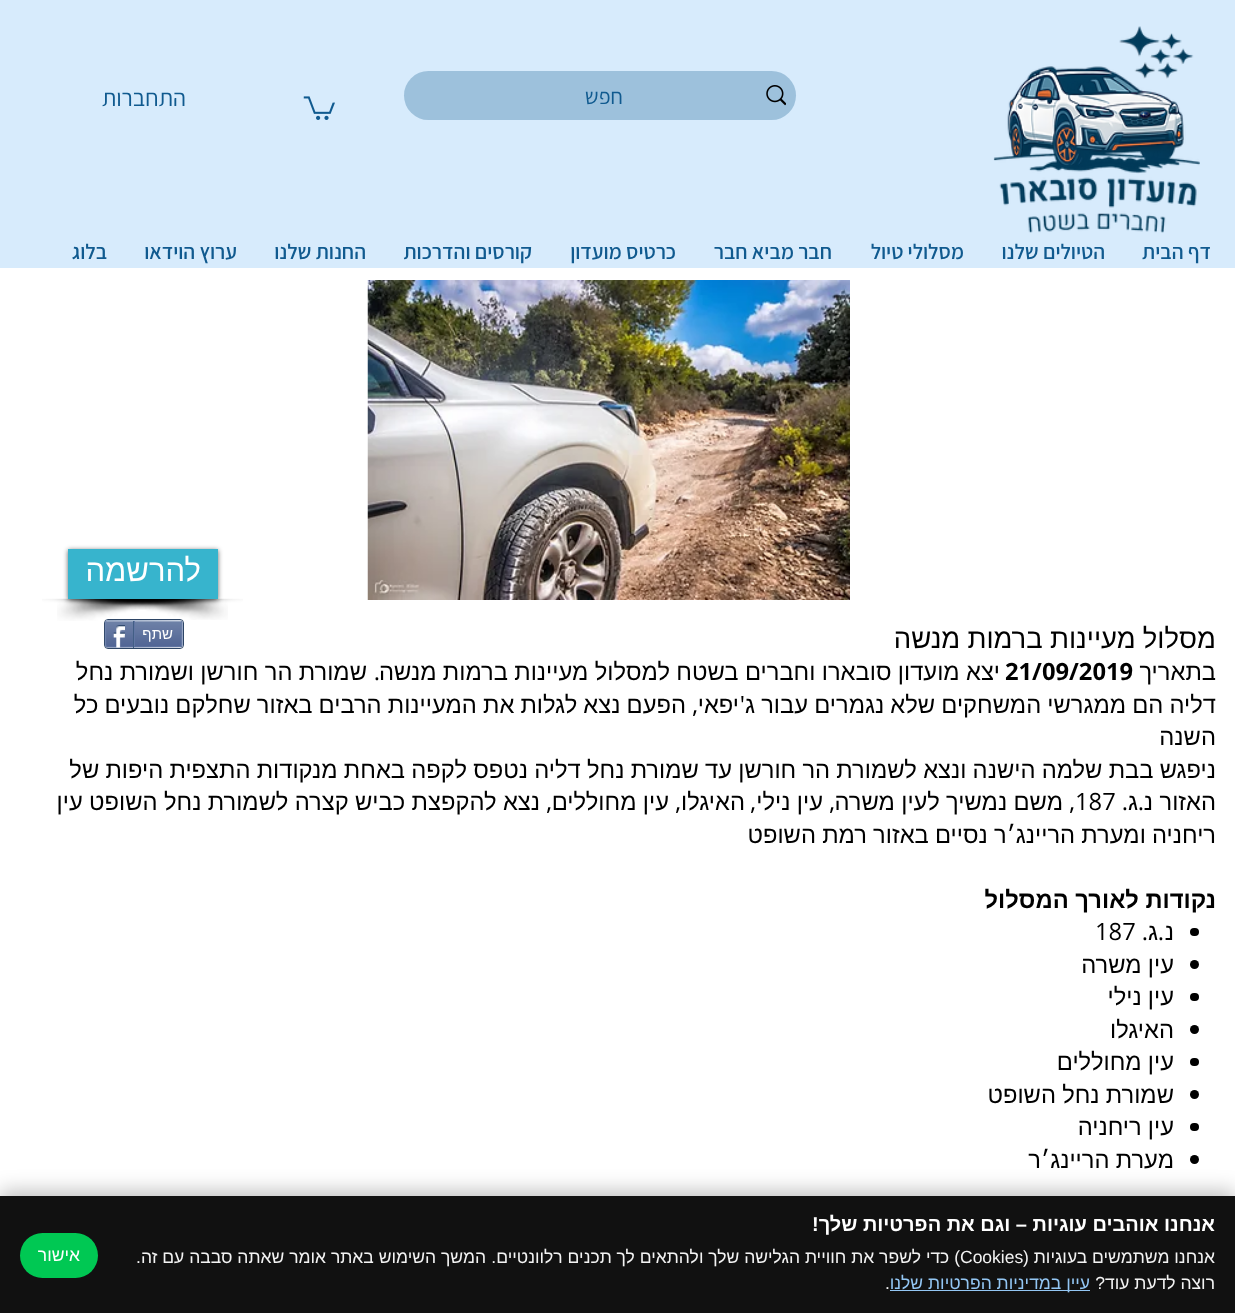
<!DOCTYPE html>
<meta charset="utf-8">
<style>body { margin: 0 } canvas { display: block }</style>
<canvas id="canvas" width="1235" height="1313"></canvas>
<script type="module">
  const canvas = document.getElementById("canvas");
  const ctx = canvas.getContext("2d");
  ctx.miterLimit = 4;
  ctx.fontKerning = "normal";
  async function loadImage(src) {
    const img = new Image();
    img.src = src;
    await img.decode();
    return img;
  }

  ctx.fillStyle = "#ffffff";
  ctx.fillRect(0, 0, 1235, 1313);
  ctx.fillStyle = "#d7ebfc";
  ctx.fillRect(0, 0, 1235, 268);
  ctx.drawImage(await loadImage("img1.png"), 993, 26, 207, 207);
  ctx.fillStyle = "#9dc1dc";
  ctx.beginPath();
  ctx.roundRect(404, 71, 392, 49, 24.5);
  ctx.fill();
  ctx.drawImage(await loadImage("img2.png"), 766, 85, 20, 21);
  ctx.direction = "rtl";
  ctx.font = "22px Assistant";
  ctx.fillStyle = "#105a8f";
  ctx.fillText("חפש", 623, 104);
  ctx.drawImage(await loadImage("img3.png"), 303, 96, 32, 24);
  ctx.font = "23.75px Assistant";
  ctx.fillText("התחברות", 186, 106);
  ctx.font = "600 21.25px Assistant";
  ctx.fillText("דף הבית", 1211, 259);
  ctx.fillText("הטיולים שלנו", 1105, 259);
  ctx.fillText("מסלולי טיול", 964, 259);
  ctx.fillText("חבר מביא חבר", 832, 259);
  ctx.fillText("כרטיס מועדון", 676, 259);
  ctx.fillText("קורסים והדרכות", 532, 259);
  ctx.fillText("החנות שלנו", 366, 259);
  ctx.fillText("ערוץ הוידאו", 237, 259);
  ctx.fillText("בלוג", 107, 259);
  ctx.drawImage(await loadImage("img4.png"), 367, 280, 483, 320);
  ctx.drawImage(await loadImage("img6.png"), 57, 598, 186, 23);
  ctx.drawImage(await loadImage("img5.png"), 42, 598, 186, 22);
  ctx.fillStyle = "rgba(0, 0, 0, 0.6)";
  ctx.filter = "blur(2.5px)";
  ctx.beginPath();
  ctx.rect(68, 550, 150, 50);
  ctx.fill();
  ctx.filter = "none";
  ctx.fillStyle = "#37b4cd";
  ctx.fillRect(68, 549, 150, 50);
  ctx.font = "31px Liberation Sans";
  ctx.fillStyle = "#ffffff";
  ctx.fillText("להרשמה", 201, 581);
  ctx.wordSpacing = "-0.5px";
  ctx.font = "27.5px Liberation Sans";
  ctx.fillStyle = "#000000";
  ctx.fillText("מסלול מעיינות ברמות מנשה", 1216, 648);
  ctx.wordSpacing = "0px";
  ctx.font = "23.75px Liberation Sans";
  ctx.fillText("בתאריך", 1216, 680);
  ctx.direction = "ltr";
  ctx.font = "bold 23.75px Open Sans";
  ctx.fillText("21/09/2019", 1005, 680);
  ctx.wordSpacing = "-0.25px";
  ctx.direction = "rtl";
  ctx.font = "23.75px Liberation Sans";
  ctx.fillText("יצא מועדון סובארו וחברים בשטח למסלול מעיינות ברמות מנשה", 1000, 680);
  ctx.wordSpacing = "0px";
  ctx.font = "23.75px Open Sans";
  ctx.fillText(".", 380, 680);
  ctx.wordSpacing = "-0.25px";
  ctx.font = "23.75px Liberation Sans";
  ctx.fillText("שמורת הר חורשן ושמורת נחל", 367, 680);
  ctx.wordSpacing = "-0.5px";
  ctx.fillText("דליה הם ממגרשי המשחקים שלא נגמרים עבור ג", 1216, 713);
  ctx.wordSpacing = "0px";
  ctx.font = "23.75px Open Sans";
  ctx.fillText("'", 745, 713);
  ctx.font = "23.75px Liberation Sans";
  ctx.fillText("יפאי", 739, 713);
  ctx.font = "23.75px Open Sans";
  ctx.fillText(",", 698, 713);
  ctx.wordSpacing = "-0.5px";
  ctx.font = "23.75px Liberation Sans";
  ctx.fillText("הפעם נצא לגלות את המעיינות הרבים באזור שחלקם נובעים כל", 686, 713);
  ctx.wordSpacing = "0px";
  ctx.fillText("השנה", 1216, 745);
  ctx.wordSpacing = "-0.4px";
  ctx.fillText("ניפגש בבת שלמה הישנה ונצא לשמורת הר חורשן עד שמורת נחל דליה נטפס לקפה באחת מנקודות התצפית היפות של", 1216, 778);
  ctx.wordSpacing = "0px";
  ctx.fillText("האזור נ", 1216, 810);
  ctx.font = "23.75px Open Sans";
  ctx.fillText(".", 1144, 810);
  ctx.font = "23.75px Liberation Sans";
  ctx.fillText("ג", 1138, 810);
  ctx.font = "23.75px Open Sans";
  ctx.fillText(".", 1128, 810);
  ctx.direction = "ltr";
  ctx.fillText("187", 1075, 810);
  ctx.direction = "rtl";
  ctx.fillText(",", 1075, 810);
  ctx.wordSpacing = "-0.25px";
  ctx.font = "23.75px Liberation Sans";
  ctx.fillText("משם נמשיך לעין משרה", 1063, 810);
  ctx.wordSpacing = "0px";
  ctx.font = "23.75px Open Sans";
  ctx.fillText(",", 835, 810);
  ctx.wordSpacing = "-0.25px";
  ctx.font = "23.75px Liberation Sans";
  ctx.fillText("עין נילי", 823, 810);
  ctx.wordSpacing = "0px";
  ctx.font = "23.75px Open Sans";
  ctx.fillText(",", 756, 810);
  ctx.font = "23.75px Liberation Sans";
  ctx.fillText("האיגלו", 745, 810);
  ctx.font = "23.75px Open Sans";
  ctx.fillText(",", 681, 810);
  ctx.wordSpacing = "-0.25px";
  ctx.font = "23.75px Liberation Sans";
  ctx.fillText("עין מחוללים", 669, 810);
  ctx.wordSpacing = "0px";
  ctx.font = "23.75px Open Sans";
  ctx.fillText(",", 552, 810);
  ctx.wordSpacing = "-0.25px";
  ctx.font = "23.75px Liberation Sans";
  ctx.fillText("נצא להקפצת כביש קצרה לשמורת נחל השופט עין", 540, 810);
  ctx.wordSpacing = "-0.4px";
  ctx.fillText("ריחניה ומערת הריינג׳ר נסיים באזור רמת השופט", 1216, 843);
  ctx.wordSpacing = "0px";
  ctx.font = "bold 23.75px Liberation Sans";
  ctx.fillText("נקודות לאורך המסלול", 1216, 908);
  ctx.beginPath();
  ctx.roundRect(1190, 928, 9, 8, 4);
  ctx.fill();
  ctx.font = "23.75px Liberation Sans";
  ctx.fillText("נ", 1174, 940);
  ctx.font = "23.75px Open Sans";
  ctx.fillText(".", 1164, 940);
  ctx.font = "23.75px Liberation Sans";
  ctx.fillText("ג", 1158, 940);
  ctx.font = "23.75px Open Sans";
  ctx.fillText(".", 1148, 940);
  ctx.direction = "ltr";
  ctx.fillText("187", 1095, 940);
  ctx.beginPath();
  ctx.arc(1194.5, 964.5, 4.5, 0, Math.PI * 2);
  ctx.fill();
  ctx.wordSpacing = "-0.4px";
  ctx.direction = "rtl";
  ctx.font = "23.75px Liberation Sans";
  ctx.fillText("עין משרה", 1174, 973);
  ctx.beginPath();
  ctx.roundRect(1190, 993, 9, 8, 4);
  ctx.fill();
  ctx.fillText("עין נילי", 1174, 1005);
  ctx.beginPath();
  ctx.arc(1194.5, 1029.5, 4.5, 0, Math.PI * 2);
  ctx.fill();
  ctx.wordSpacing = "0px";
  ctx.fillText("האיגלו", 1174, 1038);
  ctx.beginPath();
  ctx.roundRect(1190, 1058, 9, 8, 4);
  ctx.fill();
  ctx.wordSpacing = "-0.4px";
  ctx.fillText("עין מחוללים", 1174, 1070);
  ctx.beginPath();
  ctx.arc(1194.5, 1094.5, 4.5, 0, Math.PI * 2);
  ctx.fill();
  ctx.fillText("שמורת נחל השופט", 1174, 1103);
  ctx.beginPath();
  ctx.roundRect(1190, 1123, 9, 8, 4);
  ctx.fill();
  ctx.fillText("עין ריחניה", 1174, 1135);
  ctx.beginPath();
  ctx.arc(1194.5, 1159.5, 4.5, 0, Math.PI * 2);
  ctx.fill();
  ctx.fillText("מערת הריינג׳ר", 1174, 1168);
  ctx.beginPath();
  ctx.roundRect(104.5, 619.5, 79, 29, 3.5);
  ctx.strokeStyle = "#2d4565";
  ctx.stroke();
  ctx.drawImage(await loadImage("img7.png"), 105, 621, 78, 27);
  ctx.beginPath();
  ctx.moveTo(106, 621);
  ctx.lineTo(107.5, 620.5);
  ctx.lineTo(181.5, 621);
  ctx.strokeStyle = "#9aabc6";
  ctx.lineWidth = 1.2;
  ctx.stroke();
  ctx.beginPath();
  ctx.moveTo(181.5, 621);
  ctx.lineTo(182, 622.5);
  ctx.lineTo(182, 645);
  ctx.lineTo(181.5, 646.5);
  ctx.strokeStyle = "#6f83ad";
  ctx.stroke();
  ctx.beginPath();
  ctx.moveTo(181.5, 646.5);
  ctx.lineTo(119.5, 647);
  ctx.lineTo(107.5, 647);
  ctx.lineTo(106, 646.5);
  ctx.strokeStyle = "#6176a3";
  ctx.stroke();
  ctx.beginPath();
  ctx.moveTo(106, 646.5);
  ctx.lineTo(105.5, 645);
  ctx.lineTo(105.5, 622.5);
  ctx.lineTo(106, 621);
  ctx.strokeStyle = "#6f83ad";
  ctx.stroke();
  ctx.wordSpacing = "0px";
  ctx.font = "15px Liberation Sans";
  ctx.fillStyle = "#ffffff";
  ctx.fillText("שתף", 173, 639);
  ctx.fillStyle = "#6176a3";
  ctx.fillRect(134, 621, 1, 25);
  ctx.drawImage(await loadImage("img8.png"), 112, 625, 13, 23);
  ctx.fillStyle = "#425e85";
  ctx.fillRect(133, 621, 1, 27);
  ctx.fillStyle = "rgba(0, 0, 0, 0.25)";
  ctx.filter = "blur(10px)";
  ctx.beginPath();
  ctx.rect(0, 1191, 1235, 118);
  ctx.fill();
  ctx.filter = "none";
  ctx.fillStyle = "#111111";
  ctx.fillRect(0, 1196, 1235, 117);
  ctx.font = "bold 20px Liberation Sans";
  ctx.fillStyle = "#ffffff";
  ctx.fillText("אנחנו אוהבים עוגיות – וגם את הפרטיות שלך!", 1215, 1231);
  ctx.font = "17.5px Liberation Sans";
  ctx.fillStyle = "#f3f3f3";
  ctx.fillText("אנחנו משתמשים בעוגיות (", 1215, 1263);
  ctx.direction = "ltr";
  ctx.fillText("Cookies", 960, 1263);
  ctx.direction = "rtl";
  ctx.fillText(") כדי לשפר את חוויית הגלישה שלך ולהתאים לך תכנים רלוונטיים.", 960, 1263);
  ctx.fillText("המשך השימוש באתר אומר שאתה סבבה עם זה.", 486, 1263);
  ctx.fillText("רוצה לדעת עוד?", 1215, 1289);
  ctx.fillStyle = "#93c6f3";
  ctx.fillRect(890, 1290, 200, 1);
  ctx.fillText("עיין במדיניות הפרטיות שלנו", 1090, 1289);
  ctx.direction = "ltr";
  ctx.fillStyle = "#f3f3f3";
  ctx.fillText(".", 885, 1289);
  ctx.fillStyle = "#00c853";
  ctx.beginPath();
  ctx.roundRect(20, 1233, 78, 45, 22.5);
  ctx.fill();
  ctx.direction = "rtl";
  ctx.fillStyle = "#ffffff";
  ctx.fillText("אישור", 80, 1261);
</script>
